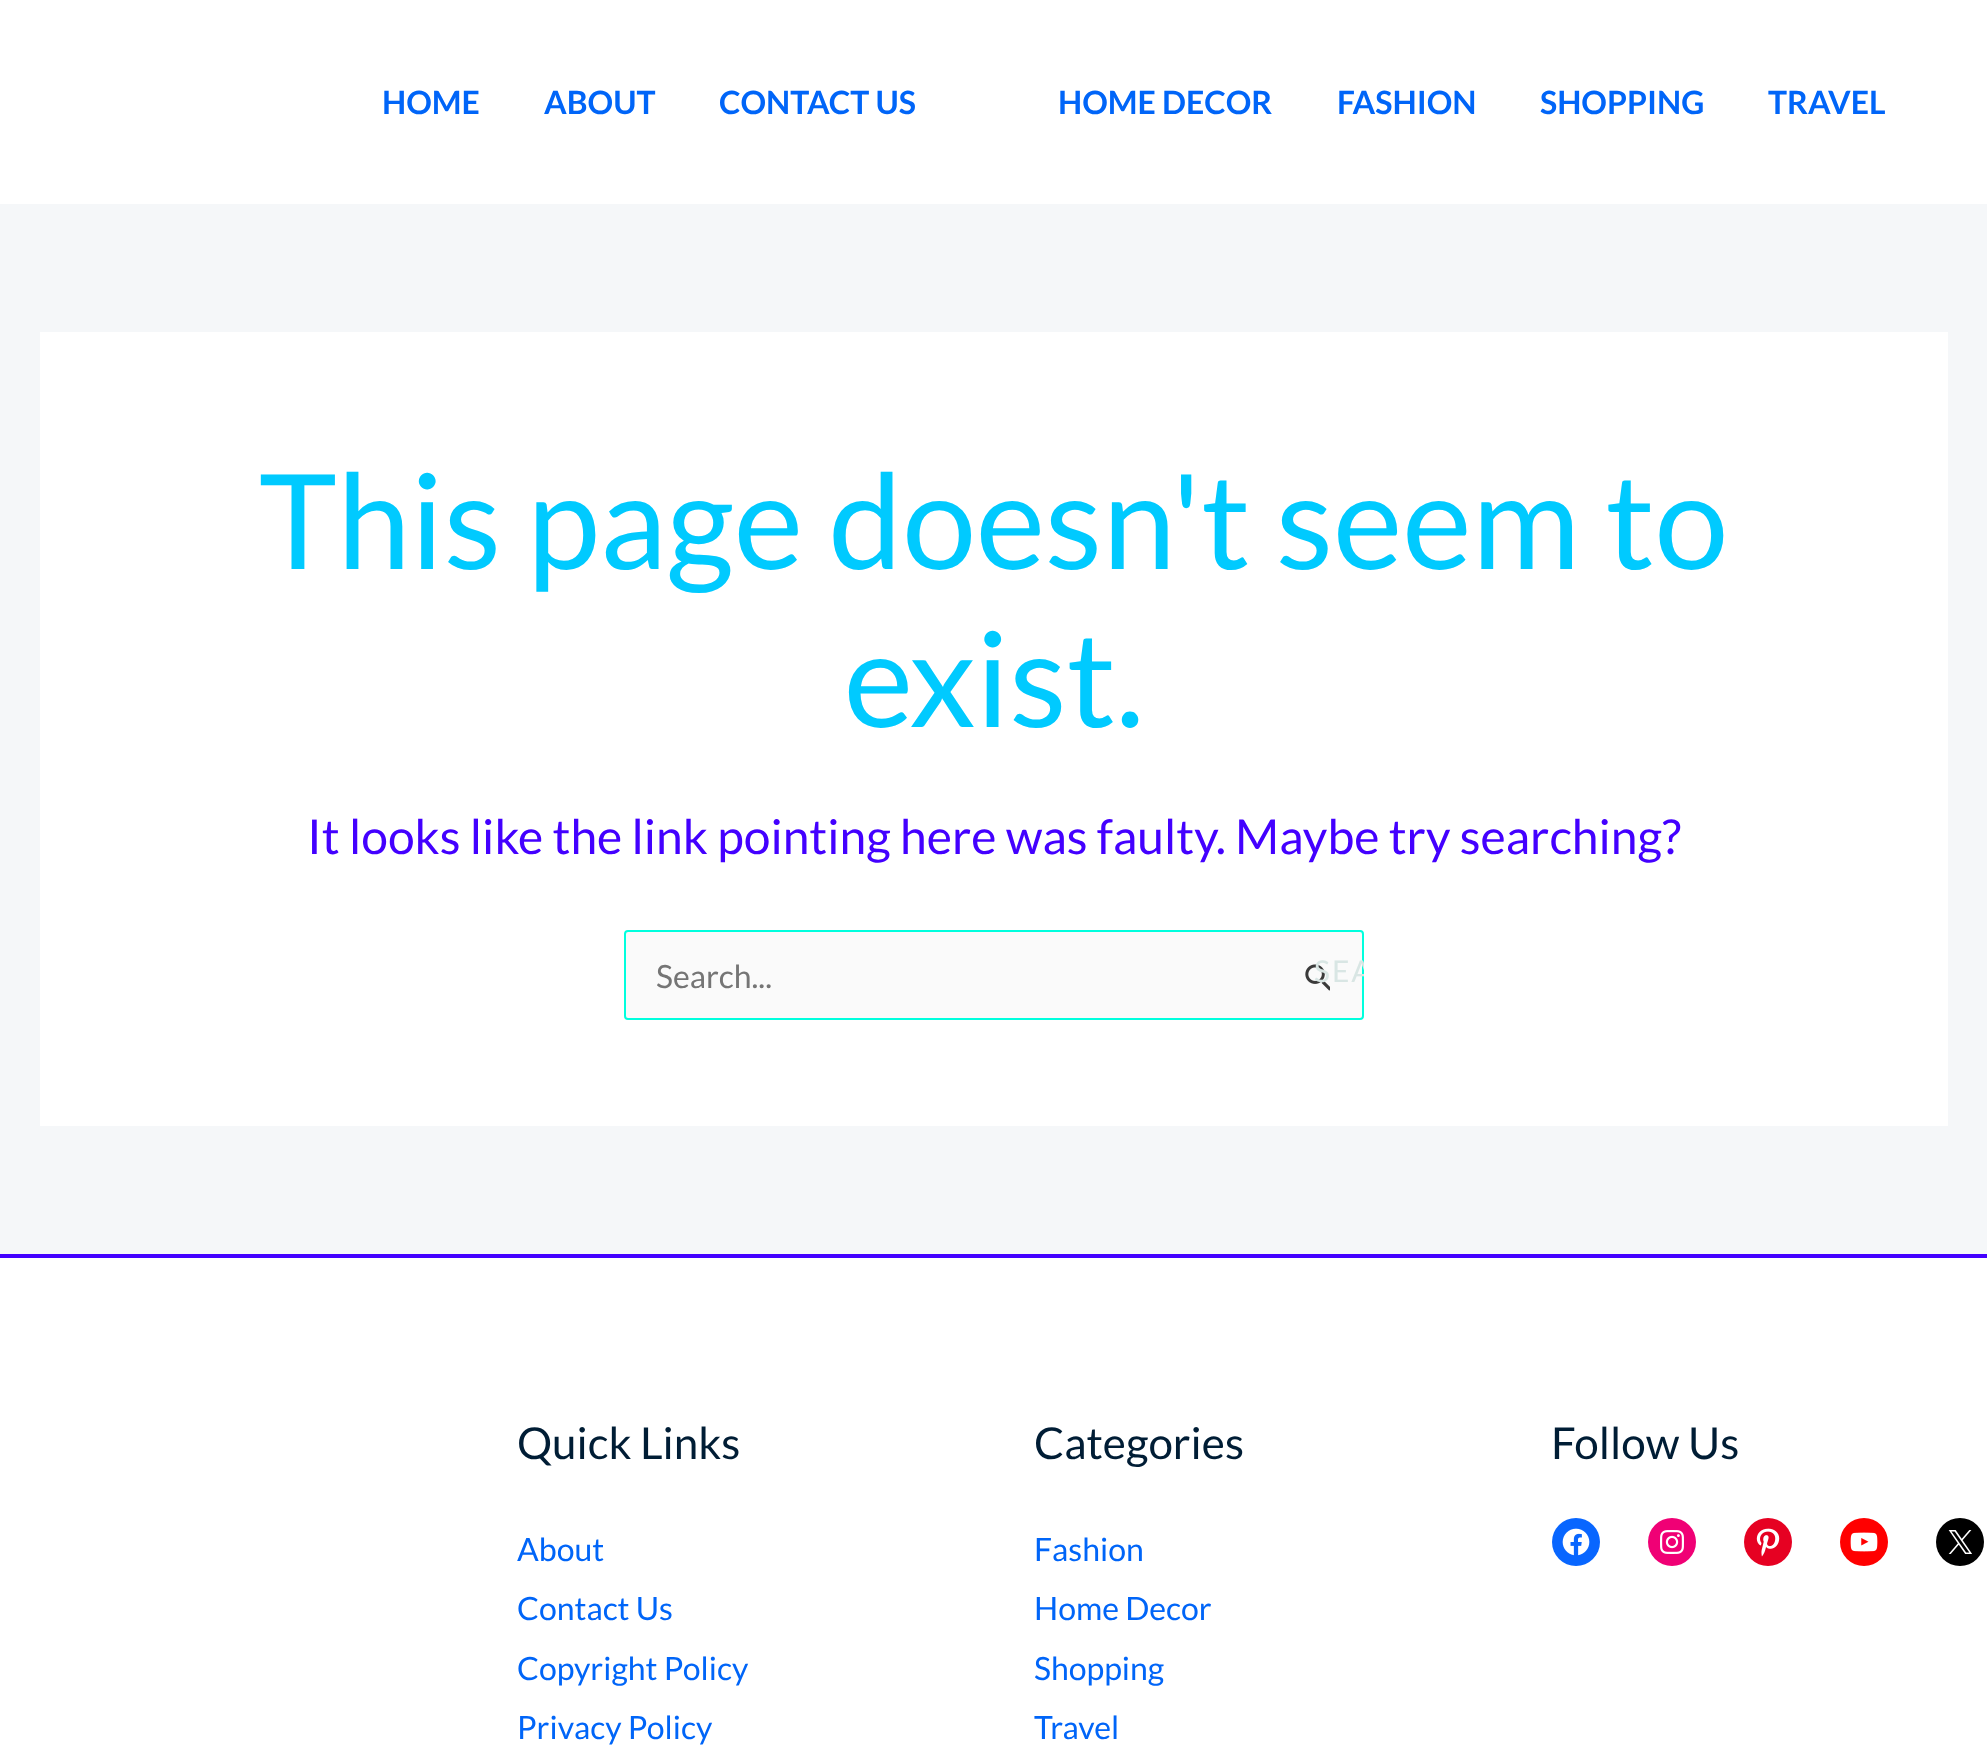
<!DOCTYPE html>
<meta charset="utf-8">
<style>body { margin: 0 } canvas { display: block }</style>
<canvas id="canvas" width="1987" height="1748"></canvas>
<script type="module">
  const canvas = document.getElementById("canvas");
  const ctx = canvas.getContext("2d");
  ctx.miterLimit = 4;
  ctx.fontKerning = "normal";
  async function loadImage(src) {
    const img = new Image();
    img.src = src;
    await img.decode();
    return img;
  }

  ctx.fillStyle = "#f5f7f9";
  ctx.fillRect(0, 0, 1987, 1748);
  ctx.fillStyle = "#ffffff";
  ctx.fillRect(0, 0, 1987, 204);
  ctx.font = "bold 32px Lato";
  ctx.fillStyle = "#0065f8";
  ctx.fillText("HOME", 382, 114);
  ctx.fillText("ABOUT", 544, 114);
  ctx.fillText("CONTACT US", 719, 114);
  ctx.fillText("HOME DECOR", 1058, 114);
  ctx.fillText("FASHION", 1337, 114);
  ctx.fillText("SHOPPING", 1540, 114);
  ctx.fillText("TRAVEL", 1768, 114);
  ctx.fillStyle = "#ffffff";
  ctx.fillRect(40, 332, 1908, 794);
  ctx.font = "132px Lato";
  ctx.fillStyle = "#00caff";
  ctx.fillText("This page doesn't seem to", 259, 569);
  ctx.fillText("exist.", 844, 727);
  ctx.font = "48px Lato";
  ctx.fillStyle = "#4300ff";
  ctx.fillText("It looks like the link pointing here was faulty. Maybe try searching?", 307, 854);
  ctx.fillStyle = "#fafafa";
  ctx.beginPath();
  ctx.roundRect(625, 931, 738, 88, 3);
  ctx.fill();
  ctx.strokeStyle = "#00ffde";
  ctx.lineWidth = 2;
  ctx.stroke();
  ctx.font = "32px Lato";
  ctx.fillStyle = "#757575";
  ctx.fillText("Search...", 656, 988);
  ctx.drawImage(await loadImage("img1.png"), 1305, 964, 25, 27);
  ctx.save();
  ctx.beginPath();
  ctx.roundRect(1274, 930, 90, 82, 4);
  ctx.clip();
  ctx.letterSpacing = "2px";
  ctx.font = "30px Lato";
  ctx.fillStyle = "#d9e6e4";
  ctx.fillText("SEA", 1314, 982);
  ctx.restore();
  ctx.fillStyle = "#ffffff";
  ctx.fillRect(0, 1258, 1987, 490);
  ctx.fillStyle = "#4300ff";
  ctx.fillRect(0, 1254, 1987, 4);
  ctx.font = "44px Lato";
  ctx.fillStyle = "#001d35";
  ctx.fillText("Quick Links", 517, 1459);
  ctx.font = "32px Lato";
  ctx.fillStyle = "#0065f8";
  ctx.fillText("About", 517, 1561);
  ctx.fillText("Contact Us", 517, 1620);
  ctx.fillText("Copyright Policy", 517, 1680);
  ctx.fillText("Privacy Policy", 517, 1739);
  ctx.font = "44px Lato";
  ctx.fillStyle = "#001d35";
  ctx.fillText("Categories", 1034, 1459);
  ctx.font = "32px Lato";
  ctx.fillStyle = "#0065f8";
  ctx.fillText("Fashion", 1034, 1561);
  ctx.fillText("Home Decor", 1034, 1620);
  ctx.fillText("Shopping", 1034, 1680);
  ctx.fillText("Travel", 1034, 1739);
  ctx.font = "44px Lato";
  ctx.fillStyle = "#001d35";
  ctx.fillText("Follow Us", 1551, 1459);
  ctx.fillStyle = "#0866ff";
  ctx.beginPath();
  ctx.arc(1576, 1542, 24, 0, Math.PI * 2);
  ctx.fill();
  ctx.drawImage(await loadImage("img2.png"), 1562, 1528, 28, 28);
  ctx.fillStyle = "#f00075";
  ctx.beginPath();
  ctx.arc(1672, 1542, 24, 0, Math.PI * 2);
  ctx.fill();
  ctx.drawImage(await loadImage("img3.png"), 1660, 1530, 24, 24);
  ctx.fillStyle = "#e60122";
  ctx.beginPath();
  ctx.arc(1768, 1542, 24, 0, Math.PI * 2);
  ctx.fill();
  ctx.drawImage(await loadImage("img4.png"), 1756, 1528, 24, 29);
  ctx.fillStyle = "#ff0000";
  ctx.beginPath();
  ctx.arc(1864, 1542, 24, 0, Math.PI * 2);
  ctx.fill();
  ctx.drawImage(await loadImage("img5.png"), 1850, 1532, 28, 20);
  ctx.fillStyle = "#000000";
  ctx.beginPath();
  ctx.arc(1960, 1542, 24, 0, Math.PI * 2);
  ctx.fill();
  ctx.drawImage(await loadImage("img6.png"), 1948, 1530, 24, 24);
</script>
